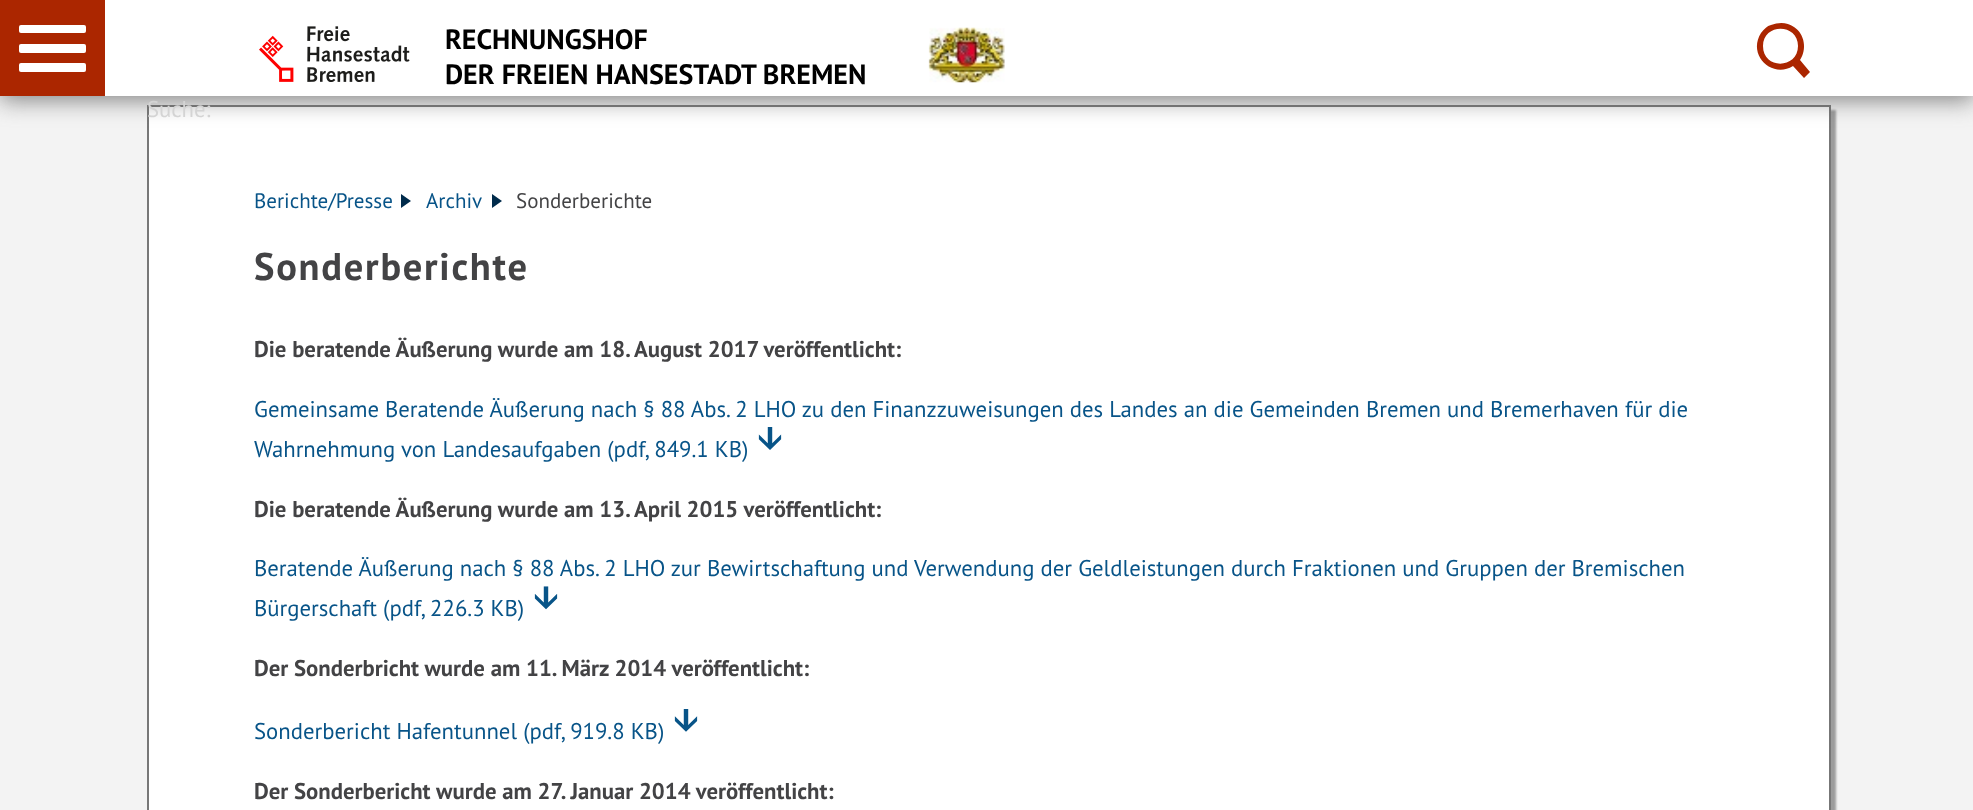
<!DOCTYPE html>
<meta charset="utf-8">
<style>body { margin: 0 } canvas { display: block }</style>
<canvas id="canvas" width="1973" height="810"></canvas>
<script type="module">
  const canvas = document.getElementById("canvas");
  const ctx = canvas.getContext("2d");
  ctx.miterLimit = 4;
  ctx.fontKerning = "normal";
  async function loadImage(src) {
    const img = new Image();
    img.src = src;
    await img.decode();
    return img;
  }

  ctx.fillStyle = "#f3f3f3";
  ctx.fillRect(0, 0, 1973, 810);
  ctx.save();
  ctx.beginPath();
  ctx.rect(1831, 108, 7, 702);
  ctx.clip();
  ctx.fillStyle = "rgba(50, 50, 50, 0.45)";
  ctx.filter = "blur(1px)";
  ctx.beginPath();
  ctx.rect(152, 110, 1684, 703);
  ctx.fill();
  ctx.filter = "none";
  ctx.restore();
  ctx.fillStyle = "rgba(255, 255, 255, 0.98)";
  ctx.beginPath();
  ctx.rect(148, 106, 1682, 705);
  ctx.fill();
  ctx.strokeStyle = "#777777";
  ctx.lineWidth = 2;
  ctx.stroke();
  ctx.fillStyle = "rgba(100, 100, 100, 0.8)";
  ctx.filter = "blur(11.5px)";
  ctx.beginPath();
  ctx.rect(0, 4, 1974, 96);
  ctx.fill();
  ctx.filter = "none";
  ctx.fillStyle = "#ab2600";
  ctx.fillRect(0, 0, 105, 96);
  ctx.fillStyle = "#ffffff";
  ctx.beginPath();
  ctx.roundRect(19, 25, 67, 8, 2);
  ctx.fill();
  ctx.beginPath();
  ctx.roundRect(19, 44, 67, 9, 2);
  ctx.fill();
  ctx.beginPath();
  ctx.roundRect(19, 63, 67, 9, 2);
  ctx.fill();
  ctx.fillRect(105, 0, 1868, 96);
  ctx.drawImage(await loadImage("img1.png"), 259, 26, 151, 56);
  ctx.font = "bold 28px PT Sans";
  ctx.fillStyle = "#000000";
  ctx.fillText("RECHNUNGSHOF", 445, 49);
  ctx.fillText("DER FREIEN HANSESTADT BREMEN", 445, 84);
  ctx.drawImage(await loadImage("img2.png"), 928, 27, 77, 56);
  ctx.fillStyle = "#ab2600";
  ctx.beginPath();
  ctx.moveTo(1810, 72);
  ctx.lineTo(1800, 60);
  ctx.bezierCurveTo(1807, 50, 1805, 34, 1794, 27);
  ctx.bezierCurveTo(1787, 22, 1779, 22, 1771, 25);
  ctx.bezierCurveTo(1767, 26, 1764, 29, 1761, 33);
  ctx.bezierCurveTo(1747, 55, 1772, 79, 1793, 66);
  ctx.lineTo(1804, 78);
  ctx.closePath();
  ctx.moveTo(1763, 46);
  ctx.bezierCurveTo(1763, 23, 1798, 23, 1798, 46);
  ctx.bezierCurveTo(1798, 69, 1763, 70, 1763, 46);
  ctx.closePath();
  ctx.fill();
  ctx.font = "22.75px PT Sans";
  ctx.fillStyle = "#d4d4d4";
  ctx.fillText("Suche:", 147, 117);
  ctx.font = "21px PT Sans";
  ctx.fillStyle = "#085488";
  ctx.fillText("Berichte/Presse", 254, 208);
  ctx.fillStyle = "#002b4b";
  ctx.beginPath();
  ctx.moveTo(401, 208);
  ctx.lineTo(401, 194);
  ctx.lineTo(411, 201);
  ctx.closePath();
  ctx.fill();
  ctx.fillStyle = "#085488";
  ctx.fillText("Archiv", 426, 208);
  ctx.fillStyle = "#002b4b";
  ctx.beginPath();
  ctx.moveTo(492, 208);
  ctx.lineTo(492, 194);
  ctx.lineTo(502, 201);
  ctx.closePath();
  ctx.fill();
  ctx.fillStyle = "#434345";
  ctx.fillText("Sonderberichte", 516, 208);
  ctx.letterSpacing = "1.75px";
  ctx.font = "bold 38.5px PT Sans";
  ctx.fillText("Sonderberichte", 254, 280);
  ctx.letterSpacing = "0px";
  ctx.font = "bold 22.75px PT Sans";
  ctx.fillText("Die beratende Äußerung wurde am 18. August 2017 veröffentlicht:", 254, 357);
  ctx.font = "22.75px PT Sans";
  ctx.fillStyle = "#085488";
  ctx.fillText("Gemeinsame Beratende Äußerung nach § 88 Abs. 2 LHO zu den Finanzzuweisungen des Landes an die Gemeinden Bremen und Bremerhaven für die", 254, 417);
  ctx.fillText("Wahrnehmung von Landesaufgaben (pdf, 849.1 KB)", 254, 457);
  ctx.drawImage(await loadImage("img3.png"), 758, 427, 24, 23);
  ctx.font = "bold 22.75px PT Sans";
  ctx.fillStyle = "#434345";
  ctx.fillText("Die beratende Äußerung wurde am 13. April 2015 veröffentlicht:", 254, 517);
  ctx.font = "22.75px PT Sans";
  ctx.fillStyle = "#085488";
  ctx.fillText("Beratende Äußerung nach § 88 Abs. 2 LHO zur Bewirtschaftung und Verwendung der Geldleistungen durch Fraktionen und Gruppen der Bremischen", 254, 576);
  ctx.fillText("Bürgerschaft (pdf, 226.3 KB)", 254, 616);
  ctx.drawImage(await loadImage("img4.png"), 534, 586, 24, 24);
  ctx.font = "bold 22.75px PT Sans";
  ctx.fillStyle = "#434345";
  ctx.fillText("Der Sonderbricht wurde am 11. März 2014 veröffentlicht:", 254, 676);
  ctx.font = "22.75px PT Sans";
  ctx.fillStyle = "#085488";
  ctx.fillText("Sonderbericht Hafentunnel (pdf, 919.8 KB)", 254, 739);
  ctx.drawImage(await loadImage("img5.png"), 674, 709, 24, 23);
  ctx.font = "bold 22.75px PT Sans";
  ctx.fillStyle = "#434345";
  ctx.fillText("Der Sonderbericht wurde am 27. Januar 2014 veröffentlicht:", 254, 799);
</script>
